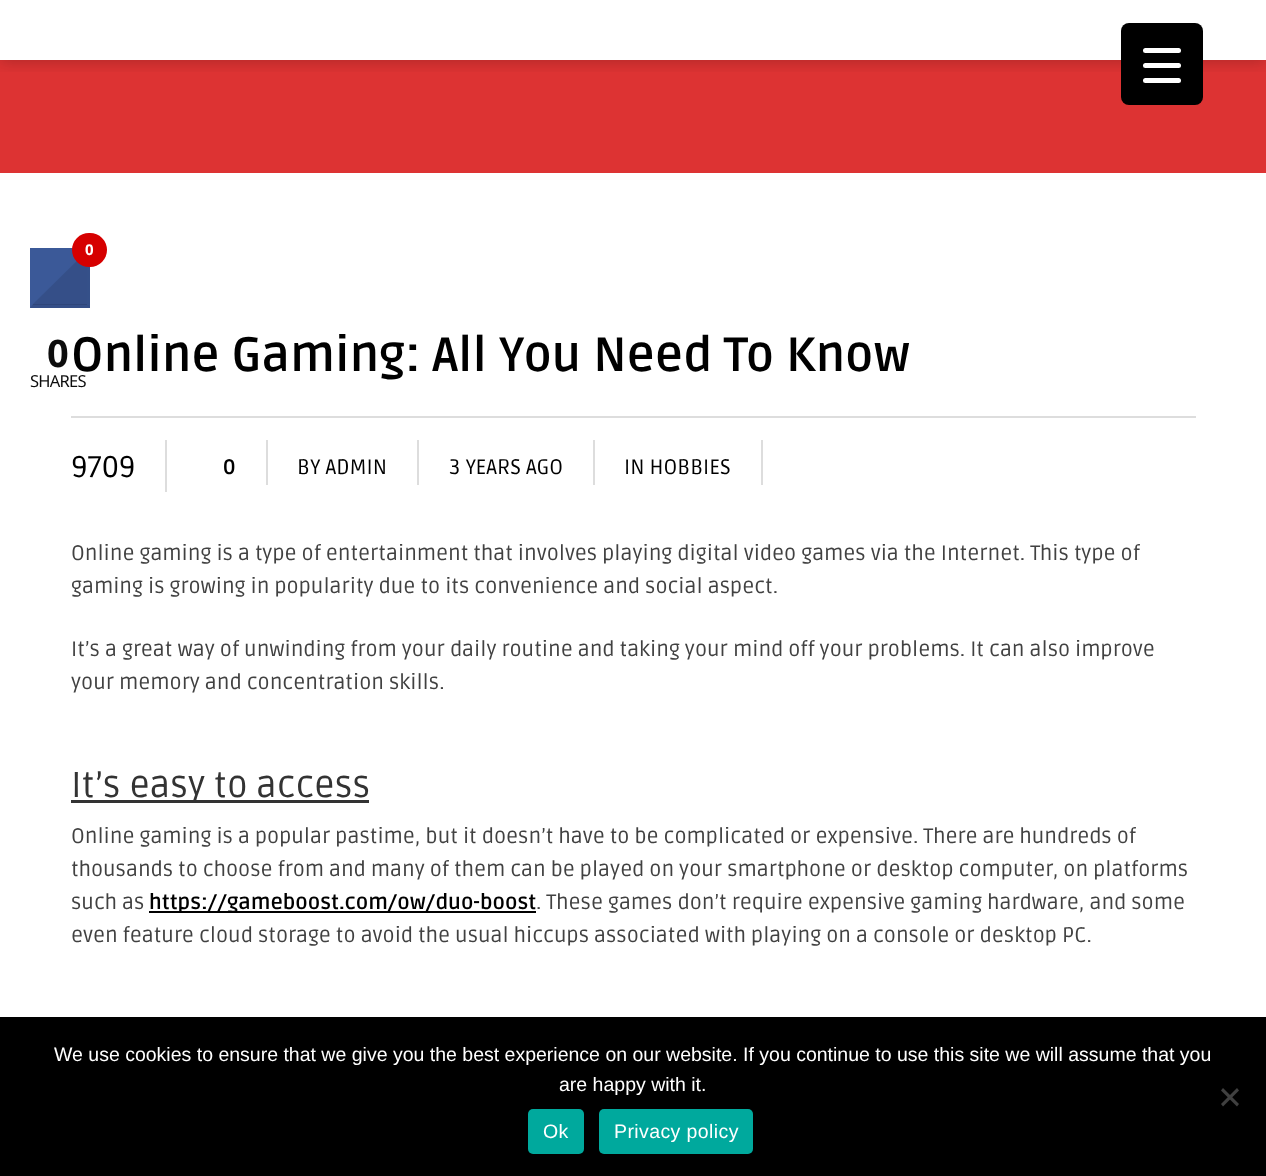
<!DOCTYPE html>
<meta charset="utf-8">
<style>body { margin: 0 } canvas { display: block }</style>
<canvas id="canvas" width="1266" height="1176"></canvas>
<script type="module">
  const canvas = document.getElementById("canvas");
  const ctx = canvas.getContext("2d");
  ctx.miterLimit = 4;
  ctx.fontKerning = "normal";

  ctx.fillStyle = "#ffffff";
  ctx.fillRect(0, 0, 1266, 1176);
  ctx.fillStyle = "#dd3333";
  ctx.fillRect(0, 60, 1266, 113);
  ctx.save();
  ctx.beginPath();
  ctx.rect(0, 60, 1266, 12);
  ctx.clip();
  ctx.fillStyle = "rgba(0, 0, 0, 0.2)";
  ctx.filter = "blur(7.5px)";
  ctx.beginPath();
  ctx.rect(0, 2, 1266, 60);
  ctx.fill();
  ctx.filter = "none";
  ctx.restore();
  ctx.fillStyle = "#000000";
  ctx.beginPath();
  ctx.roundRect(1121, 23, 82, 82, 8);
  ctx.fill();
  ctx.fillStyle = "#ffffff";
  ctx.beginPath();
  ctx.roundRect(1143, 63, 38, 5, 2.5);
  ctx.fill();
  ctx.beginPath();
  ctx.roundRect(1143, 48, 38, 5, 2.5);
  ctx.fill();
  ctx.beginPath();
  ctx.roundRect(1143, 78, 38, 5, 2.5);
  ctx.fill();
  ctx.fillStyle = "#3b5998";
  ctx.fillRect(30, 248, 60, 60);
  ctx.fillStyle = "#355089";
  ctx.beginPath();
  ctx.moveTo(90, 248);
  ctx.lineTo(90, 308);
  ctx.lineTo(87, 304);
  ctx.lineTo(87, 250);
  ctx.closePath();
  ctx.fill();
  ctx.fillStyle = "rgba(0, 0, 0, 0.1)";
  ctx.beginPath();
  ctx.moveTo(90, 308);
  ctx.lineTo(30, 308);
  ctx.lineTo(33, 304);
  ctx.lineTo(87, 304);
  ctx.closePath();
  ctx.fill();
  ctx.save();
  ctx.beginPath();
  ctx.rect(33, 251, 54, 54);
  ctx.clip();
  ctx.beginPath();
  ctx.moveTo(90, 248);
  ctx.lineTo(120, 277);
  ctx.lineTo(60, 337);
  ctx.lineTo(30, 307);
  ctx.closePath();
  ctx.fill();
  ctx.restore();
  ctx.fillStyle = "#d60000";
  ctx.beginPath();
  ctx.roundRect(72, 233, 35, 34, 17);
  ctx.fill();
  ctx.letterSpacing = "1px";
  ctx.font = "bold 15px Noto Sans";
  ctx.fillStyle = "#ffffff";
  ctx.fillText("0", 85, 255);
  ctx.font = "bold 38px Noto Sans";
  ctx.fillStyle = "#0d0d0d";
  ctx.fillText("0", 47, 367);
  ctx.letterSpacing = "-0.75px";
  ctx.font = "16.5px Noto Sans";
  ctx.fillText("SHARES", 30, 387);
  ctx.fillStyle = "#dddddd";
  ctx.fillRect(71, 416, 1125, 2);
  ctx.letterSpacing = "0px";
  ctx.font = "bold 48px Ruda";
  ctx.fillStyle = "#000000";
  ctx.fillText("Online Gaming: All You Need To Know", 71, 371);
  ctx.fillStyle = "#dddddd";
  ctx.fillRect(165, 440, 2, 52);
  ctx.font = "30px Ruda";
  ctx.fillStyle = "#000000";
  ctx.fillText("9709", 71, 477);
  ctx.fillStyle = "#dddddd";
  ctx.fillRect(266, 440, 2, 45);
  ctx.font = "bold 21px Ruda";
  ctx.fillStyle = "#000000";
  ctx.fillText("0", 223, 474);
  ctx.fillStyle = "#dddddd";
  ctx.fillRect(417, 440, 2, 45);
  ctx.font = "21px Ruda";
  ctx.fillStyle = "#000000";
  ctx.fillText("BY ADMIN", 297, 474);
  ctx.fillStyle = "#dddddd";
  ctx.fillRect(593, 440, 2, 45);
  ctx.fillStyle = "#000000";
  ctx.fillText("3 YEARS AGO", 449, 474);
  ctx.fillStyle = "#dddddd";
  ctx.fillRect(761, 440, 2, 45);
  ctx.fillStyle = "#000000";
  ctx.fillText("IN HOBBIES", 624, 474);
  ctx.fillStyle = "#414141";
  ctx.fillText("Online gaming is a type of entertainment that involves playing digital video games via the Internet. This type of", 71, 560);
  ctx.fillText("gaming is growing in popularity due to its convenience and social aspect.", 71, 593);
  ctx.fillText("It’s a great way of unwinding from your daily routine and taking your mind off your problems. It can also improve", 71, 656);
  ctx.fillText("your memory and concentration skills.", 71, 689);
  ctx.fillStyle = "#333333";
  ctx.fillRect(71, 800, 298, 3);
  ctx.font = "36px Ruda";
  ctx.fillText("It’s easy to access", 71, 797);
  ctx.font = "21px Ruda";
  ctx.fillStyle = "#414141";
  ctx.fillText("Online gaming is a popular pastime, but it doesn’t have to be complicated or expensive. There are hundreds of", 71, 843);
  ctx.fillText("thousands to choose from and many of them can be played on your smartphone or desktop computer, on platforms", 71, 876);
  ctx.fillText("such as", 71, 909);
  ctx.fillStyle = "#000000";
  ctx.fillRect(149, 911, 387, 2);
  ctx.font = "bold 21px Ruda";
  ctx.fillText("https://gameboost.com/ow/duo-boost", 149, 909);
  ctx.font = "21px Ruda";
  ctx.fillStyle = "#414141";
  ctx.fillText(". These games don’t require expensive gaming hardware, and some", 536, 909);
  ctx.fillText("even feature cloud storage to avoid the usual hiccups associated with playing on a console or desktop PC.", 71, 942);
  ctx.fillStyle = "#000000";
  ctx.fillRect(0, 1017, 1266, 159);
  ctx.font = "19.5px Liberation Sans";
  ctx.fillStyle = "#ffffff";
  ctx.fillText("We use cookies to ensure that we give you the best experience on our website. If you continue to use this site we will assume that you", 54, 1061);
  ctx.fillText("are happy with it.", 559, 1091);
  ctx.fillStyle = "#404040";
  ctx.beginPath();
  ctx.moveTo(1237, 1088);
  ctx.lineTo(1239, 1090.5);
  ctx.lineTo(1223, 1106.5);
  ctx.lineTo(1221, 1104);
  ctx.closePath();
  ctx.fill();
  ctx.beginPath();
  ctx.moveTo(1221, 1090.5);
  ctx.lineTo(1223, 1088);
  ctx.lineTo(1239, 1104);
  ctx.lineTo(1237, 1106.5);
  ctx.closePath();
  ctx.fill();
  ctx.fillStyle = "#00a99d";
  ctx.beginPath();
  ctx.roundRect(528, 1109, 56, 45, 5);
  ctx.fill();
  ctx.letterSpacing = "0.4px";
  ctx.fillStyle = "#ffffff";
  ctx.fillText("Ok", 543, 1138);
  ctx.fillStyle = "#00a99d";
  ctx.beginPath();
  ctx.roundRect(599, 1109, 154, 45, 5);
  ctx.fill();
  ctx.fillStyle = "#ffffff";
  ctx.fillText("Privacy policy", 614, 1138);
</script>
